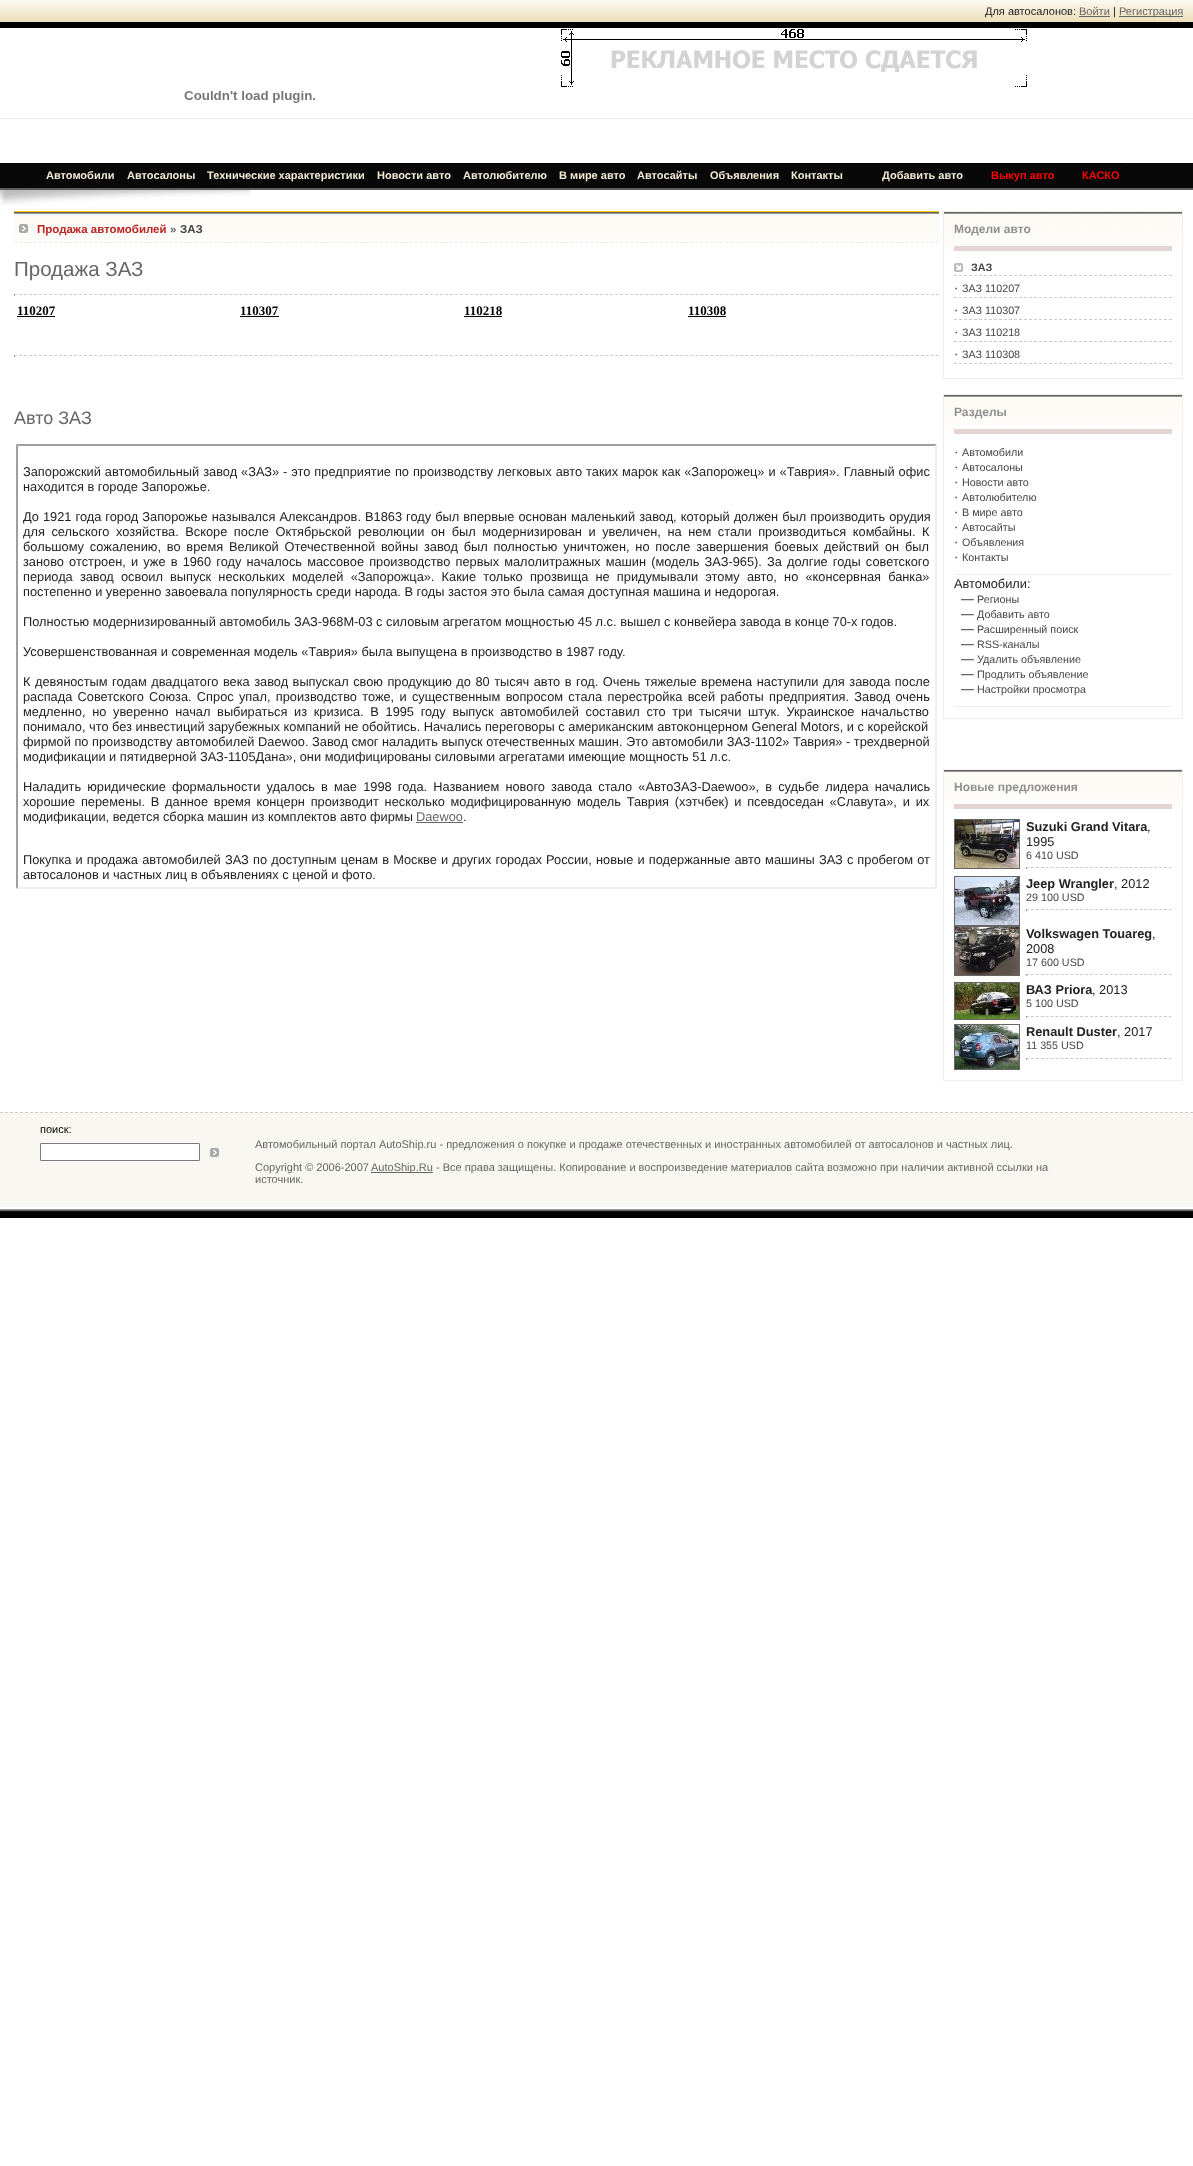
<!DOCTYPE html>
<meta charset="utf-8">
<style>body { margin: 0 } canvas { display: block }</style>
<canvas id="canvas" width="1193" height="2166"></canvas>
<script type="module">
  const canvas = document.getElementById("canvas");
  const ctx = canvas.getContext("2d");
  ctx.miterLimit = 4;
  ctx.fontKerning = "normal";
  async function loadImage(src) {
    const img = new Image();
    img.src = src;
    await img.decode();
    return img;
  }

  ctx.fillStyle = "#ffffff";
  ctx.fillRect(0, 0, 1193, 2166);
  ctx.drawImage(await loadImage("img1.png"), 0, 0, 1193, 22);
  ctx.font = "11px Liberation Sans";
  ctx.fillStyle = "#222222";
  ctx.fillText("Для автосалонов:", 985, 15);
  ctx.fillStyle = "#666666";
  ctx.fillText("Войти", 1079, 15);
  ctx.fillRect(1079, 16, 31, 1);
  ctx.fillStyle = "#222222";
  ctx.fillText("|", 1113, 15);
  ctx.fillStyle = "#666666";
  ctx.fillRect(1119, 16, 64, 1);
  ctx.fillText("Регистрация", 1119, 15);
  ctx.drawImage(await loadImage("img2.png"), 0, 1209, 1193, 9);
  ctx.fillStyle = "#000000";
  ctx.fillRect(0, 22, 1193, 6);
  ctx.drawImage(await loadImage("img3.png"), 0, 118, 500, 2);
  ctx.drawImage(await loadImage("img4.png"), 184, 91, 131, 12);
  ctx.drawImage(await loadImage("img5.png"), 500, 118, 693, 2);
  ctx.drawImage(await loadImage("img6.png"), 561, 29, 466, 58);
  ctx.fillStyle = "#080808";
  ctx.fillRect(0, 163, 1193, 25);
  ctx.fillStyle = "#5d5d5c";
  ctx.fillRect(0, 188, 1193, 2);
  ctx.fillStyle = "#000000";
  ctx.fillRect(40, 163, 1085, 1);
  ctx.font = "bold 11px Liberation Sans";
  ctx.fillStyle = "#f4ebd4";
  ctx.fillText("Автомобили", 46, 179);
  ctx.fillText("Автосалоны", 127, 179);
  ctx.fillText("Технические характеристики", 207, 179);
  ctx.fillText("Новости авто", 377, 179);
  ctx.fillText("Автолюбителю", 463, 179);
  ctx.fillText("В мире авто", 559, 179);
  ctx.fillText("Автосайты", 637, 179);
  ctx.fillText("Объявления", 710, 179);
  ctx.fillText("Контакты", 791, 179);
  ctx.fillText("Добавить авто", 882, 179);
  ctx.fillStyle = "#ff0000";
  ctx.fillText("Выкуп авто", 991, 179);
  ctx.fillText("КАСКО", 1082, 179);
  ctx.drawImage(await loadImage("img7.png"), 0, 190, 250, 15);
  ctx.drawImage(await loadImage("img8.png"), 14, 212, 925, 31);
  ctx.fillStyle = "#ffcc00";
  ctx.fillRect(14, 211, 925, 1);
  ctx.beginPath();
  ctx.moveTo(14, 242.5);
  ctx.lineTo(939, 242.5);
  ctx.strokeStyle = "#ebedde";
  ctx.setLineDash([3, 2.01]);
  ctx.stroke();
  ctx.drawImage(await loadImage("img9.png"), 19, 224, 9, 9);
  ctx.font = "bold 11.5px Liberation Sans";
  ctx.fillStyle = "#bc2525";
  ctx.fillText("Продажа автомобилей", 37, 233);
  ctx.fillStyle = "#666666";
  ctx.fillText("»", 170, 233);
  ctx.fillStyle = "#464646";
  ctx.fillText("ЗАЗ", 180, 233);
  ctx.font = "20.5px Liberation Sans";
  ctx.fillStyle = "#666666";
  ctx.fillText("Продажа ЗАЗ", 14, 276);
  ctx.beginPath();
  ctx.moveTo(14, 294.5);
  ctx.lineTo(939, 294.5);
  ctx.strokeStyle = "#cccccc";
  ctx.stroke();
  ctx.fillStyle = "#eeeeee";
  ctx.fillRect(938, 294, 1, 2);
  ctx.fillStyle = "#9f9f9f";
  ctx.fillRect(14, 294, 1, 2);
  ctx.font = "bold 13px Liberation Serif";
  ctx.fillStyle = "#000000";
  ctx.fillText("110207", 17, 315);
  ctx.fillRect(17, 316, 38, 1);
  ctx.fillText("110307", 240, 315);
  ctx.fillRect(240, 316, 39, 1);
  ctx.fillText("110218", 464, 315);
  ctx.fillRect(464, 316, 38, 1);
  ctx.fillText("110308", 688, 315);
  ctx.fillRect(688, 316, 38, 1);
  ctx.beginPath();
  ctx.moveTo(14, 355.5);
  ctx.lineTo(939, 355.5);
  ctx.stroke();
  ctx.fillStyle = "#eeeeee";
  ctx.fillRect(938, 355, 1, 2);
  ctx.fillStyle = "#9f9f9f";
  ctx.fillRect(14, 355, 1, 2);
  ctx.font = "18px Liberation Sans";
  ctx.fillStyle = "#666666";
  ctx.fillText("Авто ЗАЗ", 14, 424);
  ctx.fillStyle = "#9f9f9f";
  ctx.beginPath();
  ctx.moveTo(16, 444);
  ctx.lineTo(937, 444);
  ctx.lineTo(935, 446);
  ctx.lineTo(18, 446);
  ctx.closePath();
  ctx.fill();
  ctx.fillStyle = "#efefef";
  ctx.beginPath();
  ctx.moveTo(937, 444);
  ctx.lineTo(937, 889);
  ctx.lineTo(935, 887);
  ctx.lineTo(935, 446);
  ctx.closePath();
  ctx.fill();
  ctx.beginPath();
  ctx.moveTo(937, 889);
  ctx.lineTo(16, 889);
  ctx.lineTo(18, 887);
  ctx.lineTo(935, 887);
  ctx.closePath();
  ctx.fill();
  ctx.fillStyle = "#9f9f9f";
  ctx.beginPath();
  ctx.moveTo(16, 889);
  ctx.lineTo(16, 444);
  ctx.lineTo(18, 446);
  ctx.lineTo(18, 887);
  ctx.closePath();
  ctx.fill();
  ctx.wordSpacing = "0.4px";
  ctx.font = "12.8px Liberation Sans";
  ctx.fillStyle = "#222222";
  ctx.fillText("Запорожский автомобильный завод «ЗАЗ» - это предприятие по производству легковых авто таких марок как «Запорожец» и «Таврия». Главный офис", 23, 476);
  ctx.wordSpacing = "0px";
  ctx.fillText("находится в городе Запорожье.", 23, 491);
  ctx.wordSpacing = "0.5px";
  ctx.fillText("До 1921 года город Запорожье назывался Александров. В1863 году был впервые основан маленький завод, который должен был производить орудия", 23, 521);
  ctx.wordSpacing = "3px";
  ctx.fillText("для сельского хозяйства. Вскоре после Октябрьской революции он был модернизирован и увеличен, на нем стали производиться комбайны. К", 23, 536);
  ctx.wordSpacing = "2.25px";
  ctx.fillText("большому сожалению, во время Великой Отечественной войны завод был полностью уничтожен, но после завершения боевых действий он был", 23, 551);
  ctx.wordSpacing = "1.6px";
  ctx.fillText("заново отстроен,", 23, 566);
  ctx.fillText("и уже в 1960 году началось массовое производство первых малолитражных машин (модель ЗАЗ-965). За долгие годы советского", 131, 566);
  ctx.wordSpacing = "3.6px";
  ctx.fillText("периода завод освоил выпуск нескольких моделей «Запорожца». Какие только прозвища не придумывали этому авто, но «консервная банка»", 23, 581);
  ctx.wordSpacing = "0px";
  ctx.fillText("постепенно и уверенно завоевала популярность среди народа. В годы застоя это была самая доступная машина и недорогая.", 23, 596);
  ctx.fillText("Полностью модернизированный автомобиль ЗАЗ-968М-03 с силовым агрегатом мощностью 45 л.с. вышел с конвейера завода в конце 70-х годов.", 23, 626);
  ctx.fillText("Усовершенствованная и современная модель «Таврия» была выпущена в производство в 1987 году.", 23, 656);
  ctx.wordSpacing = "0.95px";
  ctx.fillText("К девяностым годам двадцатого века завод выпускал свою продукцию до 80 тысяч авто в год. Очень тяжелые времена наступили для завода после", 23, 686);
  ctx.wordSpacing = "1.75px";
  ctx.fillText("распада Советского Союза. Спрос упал, производство тоже, и существенным вопросом стала перестройка всей работы предприятия. Завод очень", 23, 701);
  ctx.wordSpacing = "3.1px";
  ctx.fillText("медленно, но уверенно начал выбираться из кризиса. В 1995 году выпуск автомобилей составил сто три тысячи штук. Украинское начальство", 23, 716);
  ctx.wordSpacing = "0px";
  ctx.fillText("понимало, что без инвестиций зарубежных компаний не обойтись. Начались переговоры с американским автоконцерном General Motors, и с корейской", 23, 731);
  ctx.fillText("фирмой по производству автомобилей Daewoo. Завод смог наладить выпуск отечественных машин. Это автомобили ЗАЗ-1102» Таврия» - трехдверной", 23, 746);
  ctx.fillText("модификации и пятидверной ЗАЗ-1105Дана», они модифицированы силовыми агрегатами имеющие мощность 51 л.с.", 23, 761);
  ctx.wordSpacing = "2.6px";
  ctx.fillText("Наладить юридические формальности удалось", 23, 791);
  ctx.fillText("в мае 1998 года. Названием нового завода стало «АвтоЗАЗ-Daewoo», в судьбе лидера начались", 321, 791);
  ctx.wordSpacing = "2.25px";
  ctx.fillText("хорошие перемены. В данное время концерн производит несколько модифицированную модель Таврия (хэтчбек) и псевдоседан «Славута», и их", 23, 806);
  ctx.wordSpacing = "0px";
  ctx.fillText("модификации, ведется сборка машин из комплектов авто фирмы", 23, 821);
  ctx.fillStyle = "#666666";
  ctx.fillText("Daewoo", 416, 821);
  ctx.fillRect(416, 822, 47, 1);
  ctx.fillStyle = "#222222";
  ctx.fillText(".", 463, 821);
  ctx.wordSpacing = "0.6px";
  ctx.fillText("Покупка и продажа автомобилей", 23, 864);
  ctx.fillText("ЗАЗ по доступным ценам в Москве и других городах России, новые и подержанные авто машины", 225, 864);
  ctx.wordSpacing = "0.5px";
  ctx.fillText("ЗАЗ с пробегом от", 819, 864);
  ctx.wordSpacing = "0px";
  ctx.fillText("автосалонов и частных лиц в объявлениях с ценой и фото.", 23, 879);
  ctx.drawImage(await loadImage("img10.png"), 944, 212, 238, 38);
  ctx.strokeStyle = "#eeeeee";
  ctx.setLineDash([]);
  ctx.strokeRect(943.5, 211.5, 239, 167);
  ctx.font = "bold 12px Liberation Sans";
  ctx.fillStyle = "#909090";
  ctx.fillText("Модели авто", 954, 233);
  ctx.fillStyle = "#e5d4d4";
  ctx.fillRect(954, 246, 218, 5);
  ctx.drawImage(await loadImage("img11.png"), 954, 263, 9, 9);
  ctx.font = "bold 10.75px Liberation Sans";
  ctx.fillStyle = "#464646";
  ctx.fillText("ЗАЗ", 971, 271);
  ctx.beginPath();
  ctx.moveTo(954, 275.5);
  ctx.lineTo(1172, 275.5);
  ctx.strokeStyle = "#cccccc";
  ctx.setLineDash([3, 2]);
  ctx.stroke();
  ctx.font = "12.8px Liberation Sans";
  ctx.fillStyle = "#222222";
  ctx.fillText("·", 954, 292);
  ctx.font = "10.75px Liberation Sans";
  ctx.fillStyle = "#464646";
  ctx.fillText("ЗАЗ 110207", 962, 292);
  ctx.beginPath();
  ctx.moveTo(954, 297.5);
  ctx.lineTo(1172, 297.5);
  ctx.stroke();
  ctx.font = "12.8px Liberation Sans";
  ctx.fillStyle = "#222222";
  ctx.fillText("·", 954, 314);
  ctx.font = "10.75px Liberation Sans";
  ctx.fillStyle = "#464646";
  ctx.fillText("ЗАЗ 110307", 962, 314);
  ctx.beginPath();
  ctx.moveTo(954, 319.5);
  ctx.lineTo(1172, 319.5);
  ctx.stroke();
  ctx.font = "12.8px Liberation Sans";
  ctx.fillStyle = "#222222";
  ctx.fillText("·", 954, 336);
  ctx.font = "10.75px Liberation Sans";
  ctx.fillStyle = "#464646";
  ctx.fillText("ЗАЗ 110218", 962, 336);
  ctx.beginPath();
  ctx.moveTo(954, 341.5);
  ctx.lineTo(1172, 341.5);
  ctx.stroke();
  ctx.font = "12.8px Liberation Sans";
  ctx.fillStyle = "#222222";
  ctx.fillText("·", 954, 358);
  ctx.font = "10.75px Liberation Sans";
  ctx.fillStyle = "#464646";
  ctx.fillText("ЗАЗ 110308", 962, 358);
  ctx.beginPath();
  ctx.moveTo(954, 363.5);
  ctx.lineTo(1172, 363.5);
  ctx.stroke();
  ctx.drawImage(await loadImage("img10.png"), 944, 395, 238, 38);
  ctx.strokeStyle = "#eeeeee";
  ctx.setLineDash([]);
  ctx.strokeRect(943.5, 394.5, 239, 324);
  ctx.font = "bold 12px Liberation Sans";
  ctx.fillStyle = "#909090";
  ctx.fillText("Разделы", 954, 416);
  ctx.fillStyle = "#e5d4d4";
  ctx.fillRect(954, 429, 218, 5);
  ctx.font = "12.8px Liberation Sans";
  ctx.fillStyle = "#222222";
  ctx.fillText("·", 954, 456);
  ctx.font = "10.75px Liberation Sans";
  ctx.fillStyle = "#464646";
  ctx.fillText("Автомобили", 962, 456);
  ctx.font = "12.8px Liberation Sans";
  ctx.fillStyle = "#222222";
  ctx.fillText("·", 954, 471);
  ctx.font = "10.75px Liberation Sans";
  ctx.fillStyle = "#464646";
  ctx.fillText("Автосалоны", 962, 471);
  ctx.font = "12.8px Liberation Sans";
  ctx.fillStyle = "#222222";
  ctx.fillText("·", 954, 486);
  ctx.font = "10.75px Liberation Sans";
  ctx.fillStyle = "#464646";
  ctx.fillText("Новости авто", 962, 486);
  ctx.font = "12.8px Liberation Sans";
  ctx.fillStyle = "#222222";
  ctx.fillText("·", 954, 501);
  ctx.font = "10.75px Liberation Sans";
  ctx.fillStyle = "#464646";
  ctx.fillText("Автолюбителю", 962, 501);
  ctx.font = "12.8px Liberation Sans";
  ctx.fillStyle = "#222222";
  ctx.fillText("·", 954, 516);
  ctx.font = "10.75px Liberation Sans";
  ctx.fillStyle = "#464646";
  ctx.fillText("В мире авто", 962, 516);
  ctx.font = "12.8px Liberation Sans";
  ctx.fillStyle = "#222222";
  ctx.fillText("·", 954, 531);
  ctx.font = "10.75px Liberation Sans";
  ctx.fillStyle = "#464646";
  ctx.fillText("Автосайты", 962, 531);
  ctx.font = "12.8px Liberation Sans";
  ctx.fillStyle = "#222222";
  ctx.fillText("·", 954, 546);
  ctx.font = "10.75px Liberation Sans";
  ctx.fillStyle = "#464646";
  ctx.fillText("Объявления", 962, 546);
  ctx.font = "12.8px Liberation Sans";
  ctx.fillStyle = "#222222";
  ctx.fillText("·", 954, 561);
  ctx.font = "10.75px Liberation Sans";
  ctx.fillStyle = "#464646";
  ctx.fillText("Контакты", 962, 561);
  ctx.fillStyle = "#eeeeee";
  ctx.fillRect(954, 574, 218, 1);
  ctx.font = "12.8px Liberation Sans";
  ctx.fillStyle = "#222222";
  ctx.fillText("Автомобили:", 954, 588);
  ctx.fillText("—", 961, 603);
  ctx.font = "10.75px Liberation Sans";
  ctx.fillStyle = "#464646";
  ctx.fillText("Регионы", 977, 603);
  ctx.font = "12.8px Liberation Sans";
  ctx.fillStyle = "#222222";
  ctx.fillText("—", 961, 618);
  ctx.font = "10.75px Liberation Sans";
  ctx.fillStyle = "#464646";
  ctx.fillText("Добавить авто", 977, 618);
  ctx.font = "12.8px Liberation Sans";
  ctx.fillStyle = "#222222";
  ctx.fillText("—", 961, 633);
  ctx.font = "10.75px Liberation Sans";
  ctx.fillStyle = "#464646";
  ctx.fillText("Расширенный поиск", 977, 633);
  ctx.font = "12.8px Liberation Sans";
  ctx.fillStyle = "#222222";
  ctx.fillText("—", 961, 648);
  ctx.font = "10.75px Liberation Sans";
  ctx.fillStyle = "#464646";
  ctx.fillText("RSS-каналы", 977, 648);
  ctx.font = "12.8px Liberation Sans";
  ctx.fillStyle = "#222222";
  ctx.fillText("—", 961, 663);
  ctx.font = "10.75px Liberation Sans";
  ctx.fillStyle = "#464646";
  ctx.fillText("Удалить объявление", 977, 663);
  ctx.font = "12.8px Liberation Sans";
  ctx.fillStyle = "#222222";
  ctx.fillText("—", 961, 678);
  ctx.font = "10.75px Liberation Sans";
  ctx.fillStyle = "#464646";
  ctx.fillText("Продлить объявление", 977, 678);
  ctx.font = "12.8px Liberation Sans";
  ctx.fillStyle = "#222222";
  ctx.fillText("—", 961, 693);
  ctx.font = "10.75px Liberation Sans";
  ctx.fillStyle = "#464646";
  ctx.fillText("Настройки просмотра", 977, 693);
  ctx.fillStyle = "#eeeeee";
  ctx.fillRect(954, 706, 218, 1);
  ctx.drawImage(await loadImage("img10.png"), 944, 770, 238, 38);
  ctx.strokeRect(943.5, 769.5, 239, 311);
  ctx.font = "bold 12px Liberation Sans";
  ctx.fillStyle = "#909090";
  ctx.fillText("Новые предложения", 954, 791);
  ctx.fillStyle = "#e5d4d4";
  ctx.fillRect(954, 804, 218, 5);
  ctx.strokeStyle = "#666666";
  ctx.strokeRect(954.5, 819.5, 65, 49);
  ctx.drawImage(await loadImage("img12.png"), 955, 820, 64, 48);
  ctx.font = "bold 12.8px Liberation Sans";
  ctx.fillStyle = "#222222";
  ctx.fillText("Suzuki Grand Vitara", 1026, 831);
  ctx.font = "12.8px Liberation Sans";
  ctx.fillText(",", 1147, 831);
  ctx.fillText("1995", 1026, 846);
  ctx.font = "10.75px Liberation Sans";
  ctx.fillStyle = "#464646";
  ctx.fillText("6 410 USD", 1026, 859);
  ctx.beginPath();
  ctx.moveTo(1026, 867.5);
  ctx.lineTo(1172, 867.5);
  ctx.strokeStyle = "#cccccc";
  ctx.setLineDash([3, 1.93]);
  ctx.stroke();
  ctx.fillStyle = "#eeeeee";
  ctx.fillRect(1171, 867, 1, 2);
  ctx.fillStyle = "#9f9f9f";
  ctx.fillRect(1026, 867, 1, 2);
  ctx.strokeStyle = "#666666";
  ctx.setLineDash([]);
  ctx.strokeRect(954.5, 876.5, 65, 49);
  ctx.drawImage(await loadImage("img13.png"), 955, 877, 64, 48);
  ctx.font = "bold 12.8px Liberation Sans";
  ctx.fillStyle = "#222222";
  ctx.fillText("Jeep Wrangler", 1026, 888);
  ctx.font = "12.8px Liberation Sans";
  ctx.fillText(", 2012", 1114, 888);
  ctx.font = "10.75px Liberation Sans";
  ctx.fillStyle = "#464646";
  ctx.fillText("29 100 USD", 1026, 901);
  ctx.beginPath();
  ctx.moveTo(1026, 909.5);
  ctx.lineTo(1172, 909.5);
  ctx.strokeStyle = "#cccccc";
  ctx.setLineDash([3, 1.93]);
  ctx.stroke();
  ctx.fillStyle = "#eeeeee";
  ctx.fillRect(1171, 909, 1, 2);
  ctx.fillStyle = "#9f9f9f";
  ctx.fillRect(1026, 909, 1, 2);
  ctx.strokeStyle = "#666666";
  ctx.setLineDash([]);
  ctx.strokeRect(954.5, 926.5, 65, 49);
  ctx.drawImage(await loadImage("img14.png"), 955, 927, 64, 48);
  ctx.font = "bold 12.8px Liberation Sans";
  ctx.fillStyle = "#222222";
  ctx.fillText("Volkswagen Touareg", 1026, 938);
  ctx.font = "12.8px Liberation Sans";
  ctx.fillText(",", 1152, 938);
  ctx.fillText("2008", 1026, 953);
  ctx.font = "10.75px Liberation Sans";
  ctx.fillStyle = "#464646";
  ctx.fillText("17 600 USD", 1026, 966);
  ctx.beginPath();
  ctx.moveTo(1026, 974.5);
  ctx.lineTo(1172, 974.5);
  ctx.strokeStyle = "#cccccc";
  ctx.setLineDash([3, 1.93]);
  ctx.stroke();
  ctx.fillStyle = "#eeeeee";
  ctx.fillRect(1171, 974, 1, 2);
  ctx.fillStyle = "#9f9f9f";
  ctx.fillRect(1026, 974, 1, 2);
  ctx.strokeStyle = "#666666";
  ctx.setLineDash([]);
  ctx.strokeRect(954.5, 982.5, 65, 37);
  ctx.drawImage(await loadImage("img15.png"), 955, 983, 64, 36);
  ctx.font = "bold 12.8px Liberation Sans";
  ctx.fillStyle = "#222222";
  ctx.fillText("ВАЗ Priora", 1026, 994);
  ctx.font = "12.8px Liberation Sans";
  ctx.fillText(", 2013", 1092, 994);
  ctx.font = "10.75px Liberation Sans";
  ctx.fillStyle = "#464646";
  ctx.fillText("5 100 USD", 1026, 1007);
  ctx.beginPath();
  ctx.moveTo(1026, 1016.5);
  ctx.lineTo(1172, 1016.5);
  ctx.strokeStyle = "#cccccc";
  ctx.setLineDash([3, 1.93]);
  ctx.stroke();
  ctx.fillStyle = "#eeeeee";
  ctx.fillRect(1171, 1016, 1, 2);
  ctx.fillStyle = "#9f9f9f";
  ctx.fillRect(1026, 1016, 1, 2);
  ctx.strokeStyle = "#666666";
  ctx.setLineDash([]);
  ctx.strokeRect(954.5, 1024.5, 65, 45);
  ctx.drawImage(await loadImage("img16.png"), 955, 1025, 64, 44);
  ctx.font = "bold 12.8px Liberation Sans";
  ctx.fillStyle = "#222222";
  ctx.fillText("Renault Duster", 1026, 1036);
  ctx.font = "12.8px Liberation Sans";
  ctx.fillText(", 2017", 1117, 1036);
  ctx.font = "10.75px Liberation Sans";
  ctx.fillStyle = "#464646";
  ctx.fillText("11 355 USD", 1026, 1049);
  ctx.beginPath();
  ctx.moveTo(1026, 1058.5);
  ctx.lineTo(1172, 1058.5);
  ctx.strokeStyle = "#cccccc";
  ctx.setLineDash([3, 1.93]);
  ctx.stroke();
  ctx.fillStyle = "#eeeeee";
  ctx.fillRect(1171, 1058, 1, 2);
  ctx.fillStyle = "#9f9f9f";
  ctx.fillRect(1026, 1058, 1, 2);
  ctx.fillStyle = "#f8f7f1";
  ctx.fillRect(0, 1112, 1193, 95);
  ctx.beginPath();
  ctx.moveTo(0, 1112.5);
  ctx.lineTo(1193, 1112.5);
  ctx.setLineDash([3, 2]);
  ctx.stroke();
  ctx.font = "11px Liberation Sans";
  ctx.fillStyle = "#000000";
  ctx.fillText("поиск:", 40, 1133);
  ctx.fillStyle = "#ffffff";
  ctx.beginPath();
  ctx.rect(40.5, 1143.5, 159, 17);
  ctx.fill();
  ctx.strokeStyle = "#7e7e7e";
  ctx.setLineDash([]);
  ctx.stroke();
  ctx.drawImage(await loadImage("img17.png"), 210, 1148, 9, 9);
  ctx.fillStyle = "#666666";
  ctx.fillText("Автомобильный портал AutoShip.ru - предложения о покупке и продаже отечественных и иностранных автомобилей от автосалонов и частных лиц.", 255, 1148);
  ctx.fillText("Copyright © 2006-2007", 255, 1171);
  ctx.fillRect(371, 1172, 62, 1);
  ctx.fillText("AutoShip.Ru", 371, 1171);
  ctx.fillText("- Все права защищены. Копирование и воспроизведение материалов сайта возможно при наличии активной ссылки на", 436, 1171);
  ctx.fillText("источник.", 255, 1183);
</script>
